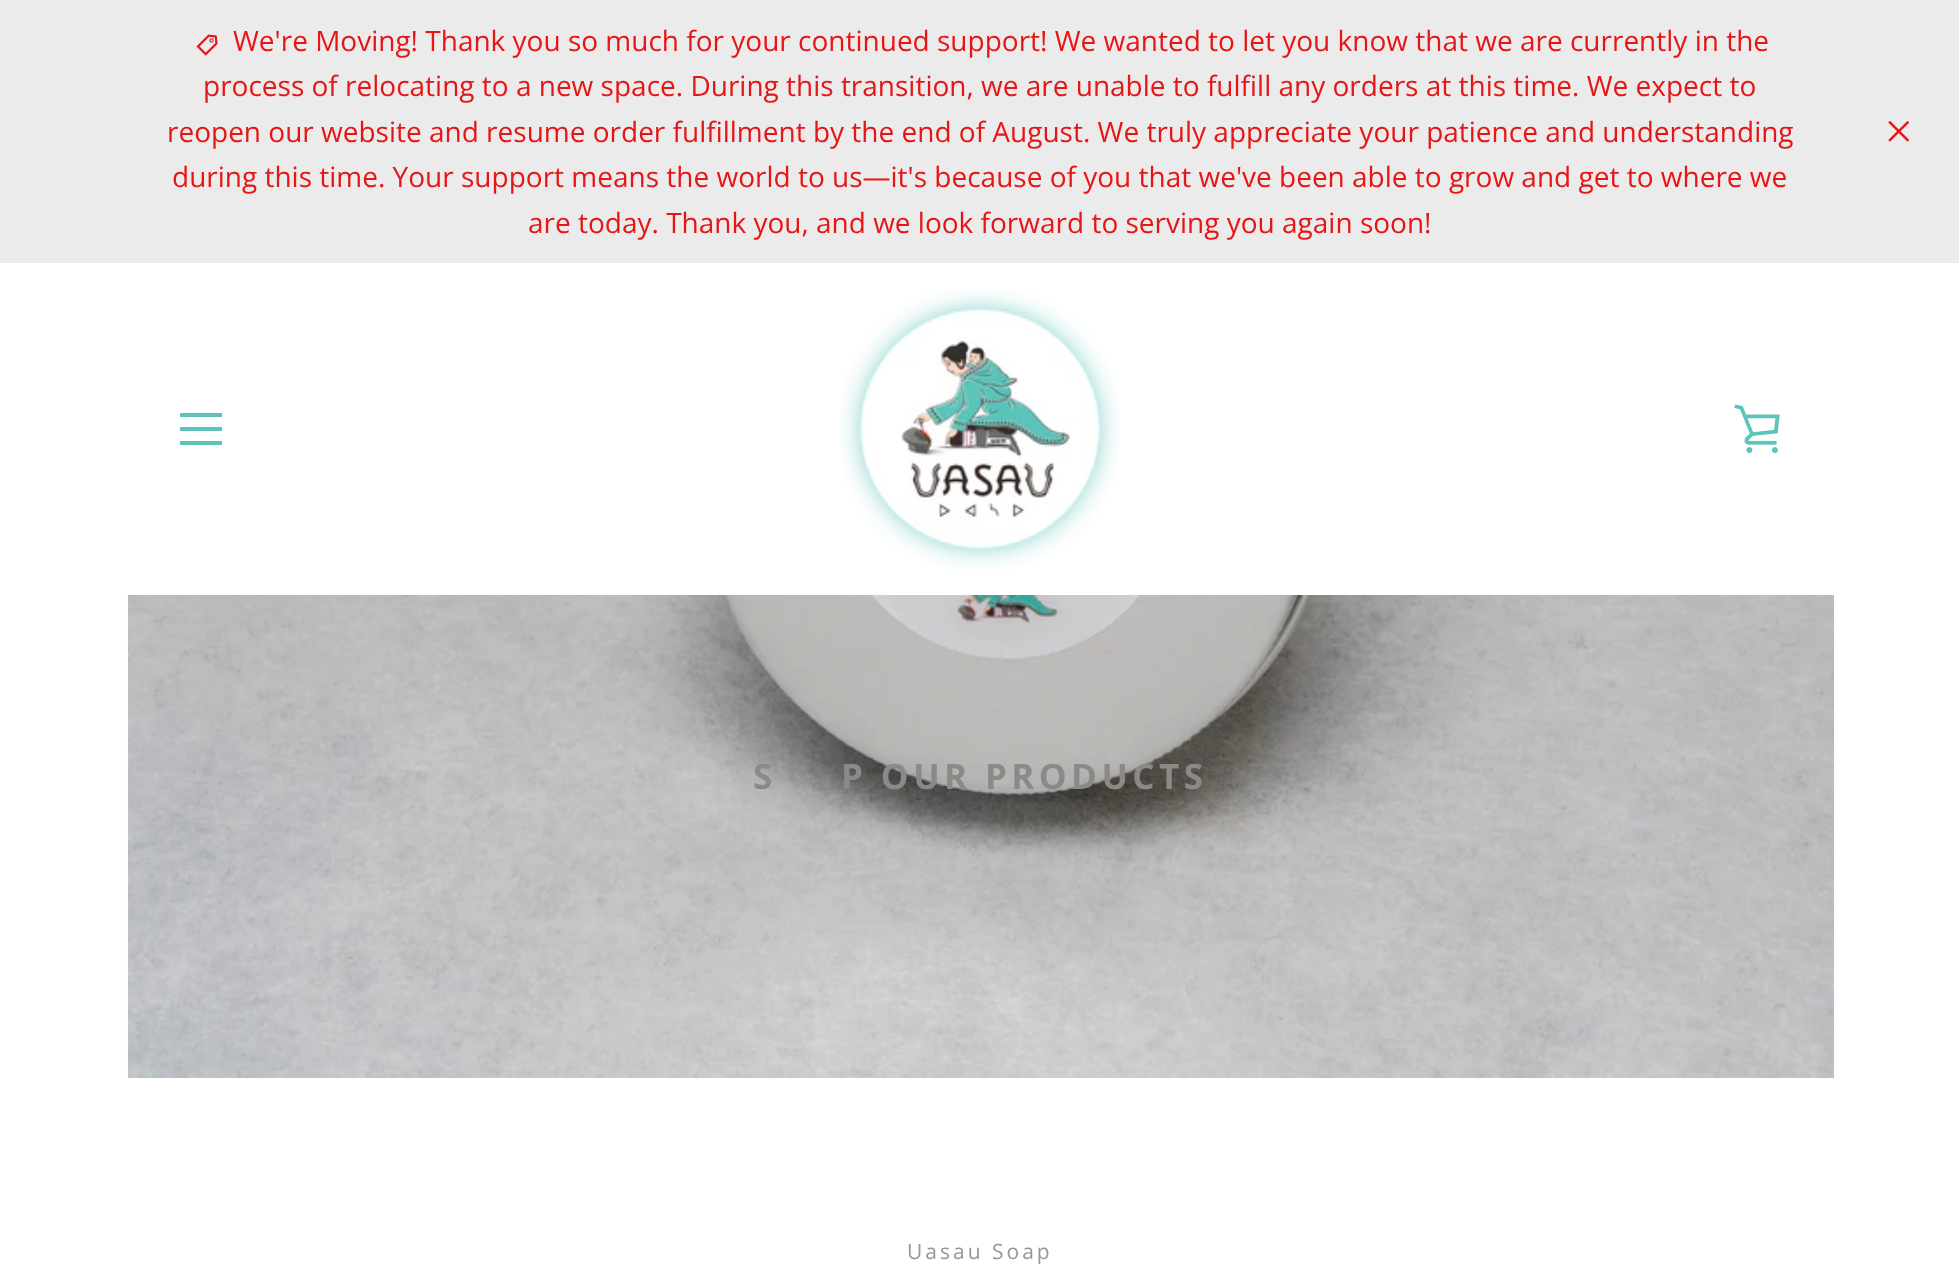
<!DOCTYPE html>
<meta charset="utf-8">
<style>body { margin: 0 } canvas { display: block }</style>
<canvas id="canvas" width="1959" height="1275"></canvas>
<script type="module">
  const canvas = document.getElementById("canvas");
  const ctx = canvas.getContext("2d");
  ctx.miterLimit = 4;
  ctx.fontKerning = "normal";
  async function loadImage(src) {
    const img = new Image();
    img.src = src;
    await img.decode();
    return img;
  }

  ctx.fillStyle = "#ffffff";
  ctx.fillRect(0, 0, 1959, 1275);
  ctx.fillStyle = "#ebebeb";
  ctx.fillRect(0, 0, 1959, 263);
  ctx.drawImage(await loadImage("img1.png"), 196, 34, 22, 22);
  ctx.font = "28px Open Sans";
  ctx.fillStyle = "#e71515";
  ctx.fillText("We're Moving! Thank you so much for your continued support! We wanted to let you know that we are currently in the", 233, 51);
  ctx.fillText("process of relocating to a new space. During this transition, we are unable to fulfill any orders at this time. We expect to", 203, 96);
  ctx.fillText("reopen our website and resume order fulfillment by the end of August. We truly appreciate your patience and understanding", 167, 142);
  ctx.fillText("during this time. Your support means the world to us—it's because of you that we've been able to grow and get to where we", 172, 187);
  ctx.fillText("are today. Thank you, and we look forward to serving you again soon!", 528, 233);
  ctx.drawImage(await loadImage("img2.png"), 1888, 121, 21, 21);
  ctx.drawImage(await loadImage("img3.png"), 840, 289, 280, 280);
  ctx.drawImage(await loadImage("img4.png"), 1734, 404, 46, 50);
  ctx.fillStyle = "#5cc4bb";
  ctx.fillRect(180, 413, 42, 4);
  ctx.fillRect(180, 427, 42, 4);
  ctx.fillRect(180, 441, 42, 4);
  ctx.drawImage(await loadImage("img5.png"), 127, 595, 1707, 483);
  ctx.letterSpacing = "4.4px";
  ctx.font = "bold 35px Open Sans";
  ctx.fillStyle = "#8b8a88";
  ctx.fillText("S", 753, 789);
  ctx.fillText("P OUR PRODUCTS", 841, 789);
  ctx.letterSpacing = "3px";
  ctx.font = "21px Open Sans";
  ctx.fillStyle = "#979797";
  ctx.fillText("Uasau Soap", 907, 1259);
</script>
